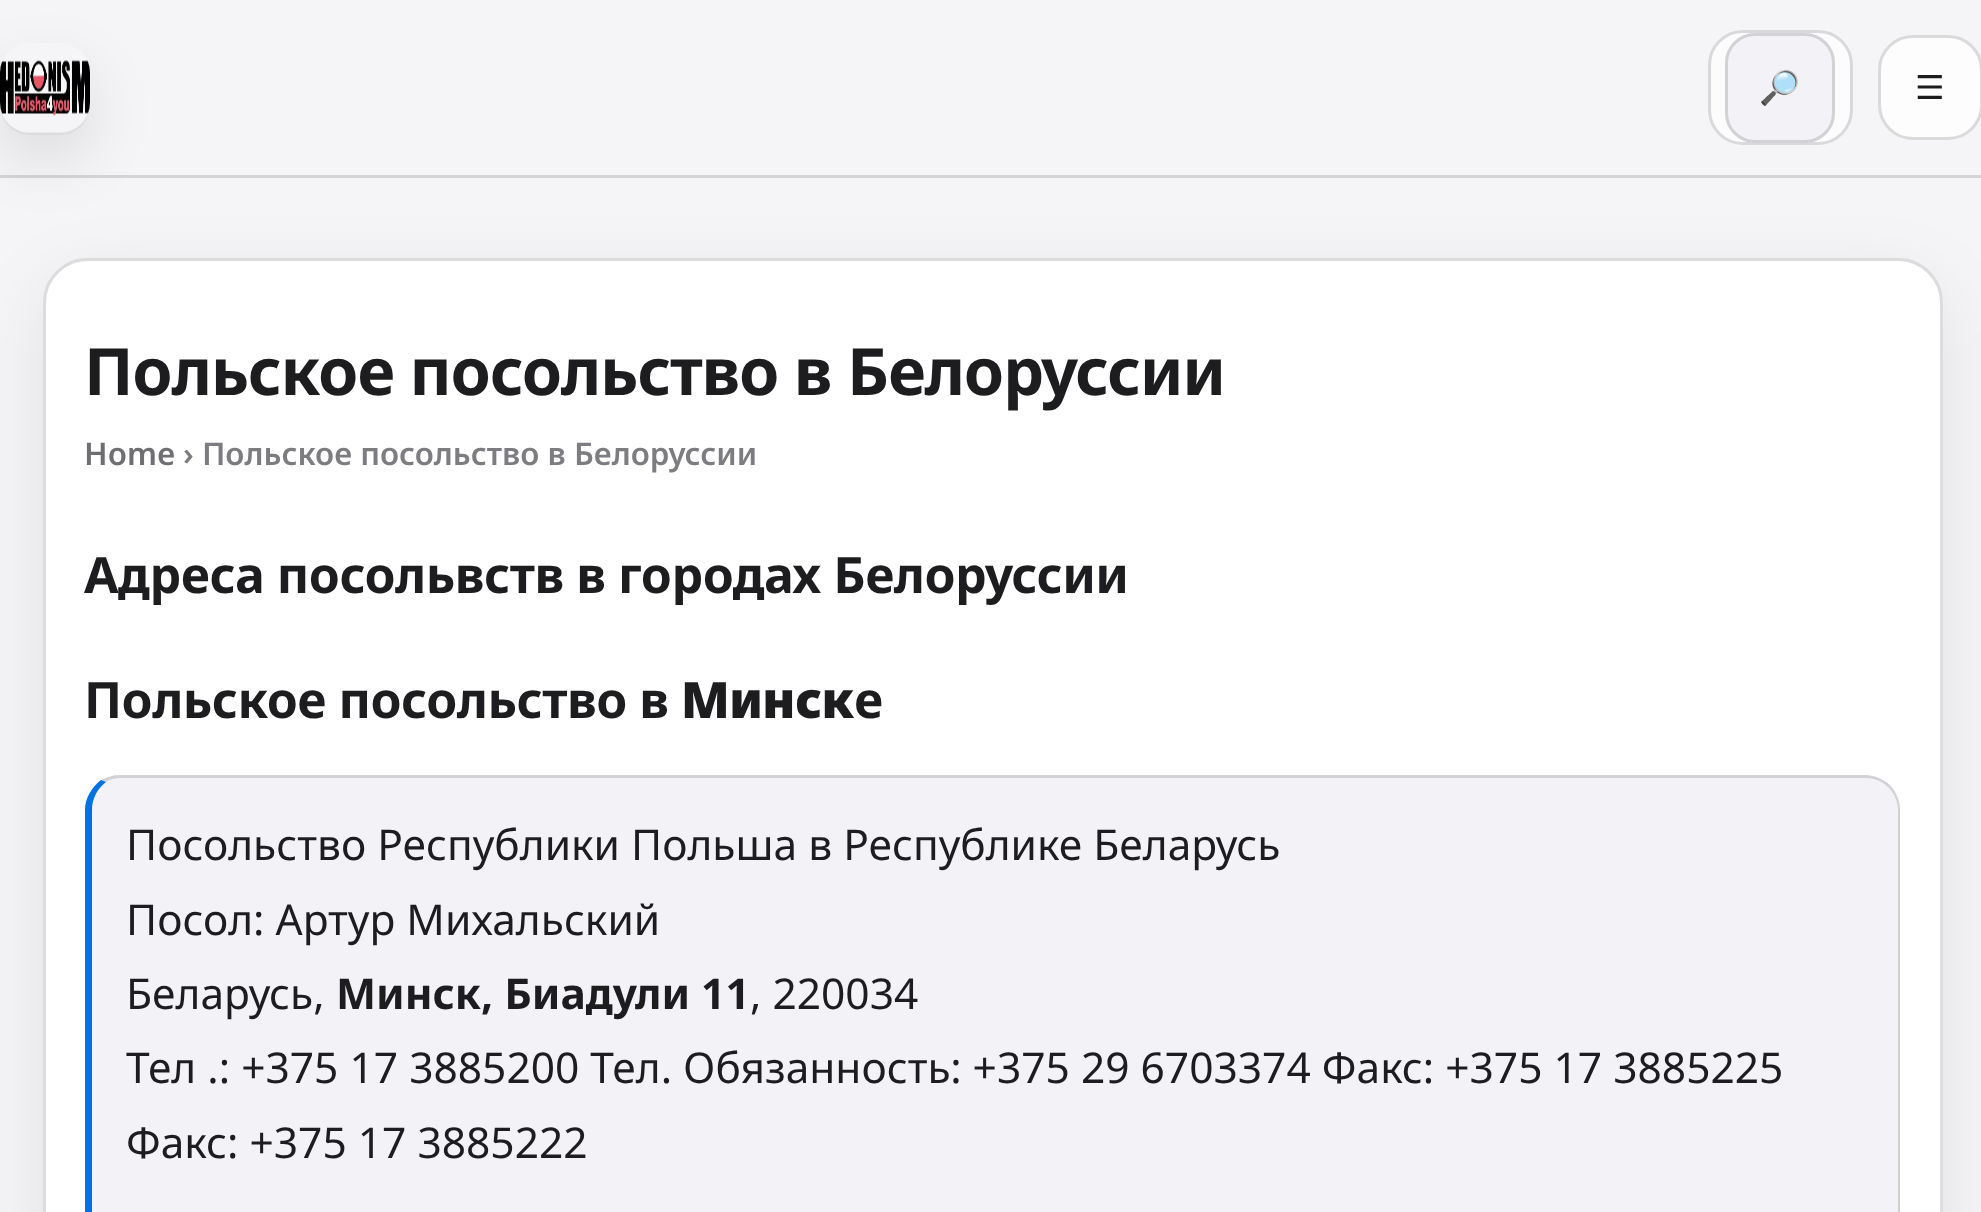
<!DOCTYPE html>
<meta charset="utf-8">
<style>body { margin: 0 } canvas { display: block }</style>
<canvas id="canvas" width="1981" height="1212"></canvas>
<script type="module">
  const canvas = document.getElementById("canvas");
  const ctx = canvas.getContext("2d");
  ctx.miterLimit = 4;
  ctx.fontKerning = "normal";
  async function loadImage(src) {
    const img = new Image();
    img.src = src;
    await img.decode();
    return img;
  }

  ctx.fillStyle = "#f5f5f7";
  ctx.fillRect(0, 0, 1981, 1212);
  ctx.fillStyle = "rgba(0, 0, 0, 0.08)";
  ctx.filter = "blur(37.5px)";
  ctx.beginPath();
  ctx.roundRect(43, 283, 1900, 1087, 45);
  ctx.fill();
  ctx.filter = "none";
  ctx.fillStyle = "#d4d4d7";
  ctx.fillRect(0, 175, 1981, 3);
  ctx.save();
  ctx.beginPath();
  ctx.moveTo(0, 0);
  ctx.lineTo(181, 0);
  ctx.lineTo(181, 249);
  ctx.lineTo(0, 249);
  ctx.closePath();
  ctx.moveTo(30, 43);
  ctx.lineTo(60, 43);
  ctx.bezierCurveTo(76.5, 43, 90, 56.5, 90, 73);
  ctx.lineTo(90, 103);
  ctx.bezierCurveTo(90, 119.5, 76.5, 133, 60, 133);
  ctx.lineTo(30, 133);
  ctx.bezierCurveTo(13.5, 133, 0, 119.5, 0, 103);
  ctx.lineTo(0, 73);
  ctx.bezierCurveTo(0, 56.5, 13.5, 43, 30, 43);
  ctx.closePath();
  ctx.clip("evenodd");
  ctx.fillStyle = "rgba(0, 0, 0, 0.1)";
  ctx.filter = "blur(30px)";
  ctx.beginPath();
  ctx.roundRect(0, 68, 90, 90, 30);
  ctx.fill();
  ctx.filter = "none";
  ctx.restore();
  ctx.fillStyle = "rgba(0, 0, 0, 0.04)";
  ctx.beginPath();
  ctx.moveTo(0, 102);
  ctx.lineTo(0, 105);
  ctx.bezierCurveTo(0, 122, 13, 135, 30, 135);
  ctx.lineTo(60, 135);
  ctx.bezierCurveTo(77, 135, 90, 122, 90, 105);
  ctx.lineTo(90, 102);
  ctx.bezierCurveTo(90, 119, 77, 132, 60, 132);
  ctx.lineTo(30, 132);
  ctx.bezierCurveTo(13, 132, 0, 119, 0, 102);
  ctx.closePath();
  ctx.fill();
  ctx.drawImage(await loadImage("img1.png"), 0, 60, 90, 56);
  ctx.fillStyle = "#fcfcfd";
  ctx.beginPath();
  ctx.roundRect(1708, 30, 145, 115, 35);
  ctx.fill();
  ctx.beginPath();
  ctx.roundRect(1709.5, 31.5, 142, 112, 33.5);
  ctx.strokeStyle = "rgba(60, 60, 67, 0.18)";
  ctx.lineWidth = 3;
  ctx.stroke();
  ctx.fillStyle = "#f2f2f7";
  ctx.beginPath();
  ctx.roundRect(1725, 33, 110, 110, 30);
  ctx.fill();
  ctx.beginPath();
  ctx.roundRect(1726.5, 34.5, 107, 107, 28.5);
  ctx.stroke();
  ctx.font = "33px Noto Color Emoji";
  ctx.fillStyle = "#6e6e73";
  ctx.fillText("🔎", 1759, 99);
  ctx.fillStyle = "#fdfdfd";
  ctx.beginPath();
  ctx.roundRect(1878, 35, 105, 105, 35);
  ctx.fill();
  ctx.beginPath();
  ctx.roundRect(1879.5, 36.5, 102, 102, 33.5);
  ctx.stroke();
  ctx.font = "33px DejaVu Sans";
  ctx.fillStyle = "#1d1d1f";
  ctx.fillText("☰", 1915, 99);
  ctx.fillStyle = "#ffffff";
  ctx.beginPath();
  ctx.roundRect(43, 258, 1900, 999, 45);
  ctx.fill();
  ctx.beginPath();
  ctx.roundRect(44.5, 259.5, 1897, 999, 43.5);
  ctx.stroke();
  ctx.letterSpacing = "-1.25px";
  ctx.font = "bold 65px Noto Sans";
  ctx.fillStyle = "#1d1d1f";
  ctx.fillText("Польское посольство в Белоруссии", 84, 395);
  ctx.letterSpacing = "0px";
  ctx.font = "600 31.25px Noto Sans";
  ctx.fillStyle = "#6e6e73";
  ctx.fillText("Home", 84, 465);
  ctx.fillStyle = "#7d7d81";
  ctx.fillText("› Польское посольство в Белоруссии", 183, 465);
  ctx.letterSpacing = "-0.5px";
  ctx.font = "bold 50px Noto Sans";
  ctx.fillStyle = "#1d1d1f";
  ctx.fillText("Адреса посольвств в городах Белоруссии", 84, 593);
  ctx.fillText("Польское посольство в", 84, 718);
  ctx.font = "900 50px Noto Sans";
  ctx.fillText("Минск", 681, 718);
  ctx.font = "bold 50px Noto Sans";
  ctx.fillText("е", 854, 718);
  ctx.fillStyle = "#f2f2f7";
  ctx.beginPath();
  ctx.roundRect(85, 775, 1815, 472, 35);
  ctx.fill();
  ctx.fillStyle = "rgba(60, 60, 67, 0.18)";
  ctx.beginPath();
  ctx.moveTo(120, 775);
  ctx.bezierCurveTo(113, 775, 107, 777, 101, 780);
  ctx.lineTo(106, 782);
  ctx.bezierCurveTo(110, 779, 115, 778, 120, 778);
  ctx.lineTo(1865, 778);
  ctx.bezierCurveTo(1874, 778, 1882, 781, 1888, 787);
  ctx.lineTo(1890, 785);
  ctx.bezierCurveTo(1883, 779, 1874, 775, 1865, 775);
  ctx.closePath();
  ctx.fill();
  ctx.beginPath();
  ctx.moveTo(1900, 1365);
  ctx.lineTo(1900, 810);
  ctx.bezierCurveTo(1900, 800, 1896, 792, 1890, 785);
  ctx.lineTo(1888, 787);
  ctx.bezierCurveTo(1894, 793, 1898, 801, 1898, 810);
  ctx.lineTo(1898, 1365);
  ctx.bezierCurveTo(1898, 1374, 1894, 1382, 1888, 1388);
  ctx.lineTo(1890, 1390);
  ctx.bezierCurveTo(1896, 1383, 1900, 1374, 1900, 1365);
  ctx.closePath();
  ctx.fill();
  ctx.fillStyle = "#0071e3";
  ctx.beginPath();
  ctx.moveTo(85, 810);
  ctx.lineTo(85, 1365);
  ctx.bezierCurveTo(85, 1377, 92, 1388, 101, 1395);
  ctx.lineTo(106, 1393);
  ctx.bezierCurveTo(98, 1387, 92, 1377, 92, 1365);
  ctx.lineTo(92, 810);
  ctx.bezierCurveTo(92, 798, 98, 788, 106, 782);
  ctx.lineTo(101, 780);
  ctx.bezierCurveTo(92, 787, 85, 798, 85, 810);
  ctx.closePath();
  ctx.fill();
  ctx.letterSpacing = "0px";
  ctx.font = "42.5px Noto Sans";
  ctx.fillStyle = "#1d1d1f";
  ctx.fillText("Посольство Республики Польша в Республике Беларусь", 126, 860);
  ctx.fillText("Посол: Артур Михальский", 126, 935);
  ctx.fillText("Беларусь,", 126, 1009);
  ctx.font = "bold 42.5px Noto Sans";
  ctx.fillText("Минск, Биадули 11", 336, 1009);
  ctx.font = "42.5px Noto Sans";
  ctx.fillText(", 220034", 750, 1009);
  ctx.fillText("Тел .: +375 17 3885200 Тел. Обязанность: +375 29 6703374 Факс: +375 17 3885225", 126, 1083);
  ctx.fillText("Факс: +375 17 3885222", 126, 1158);
</script>
